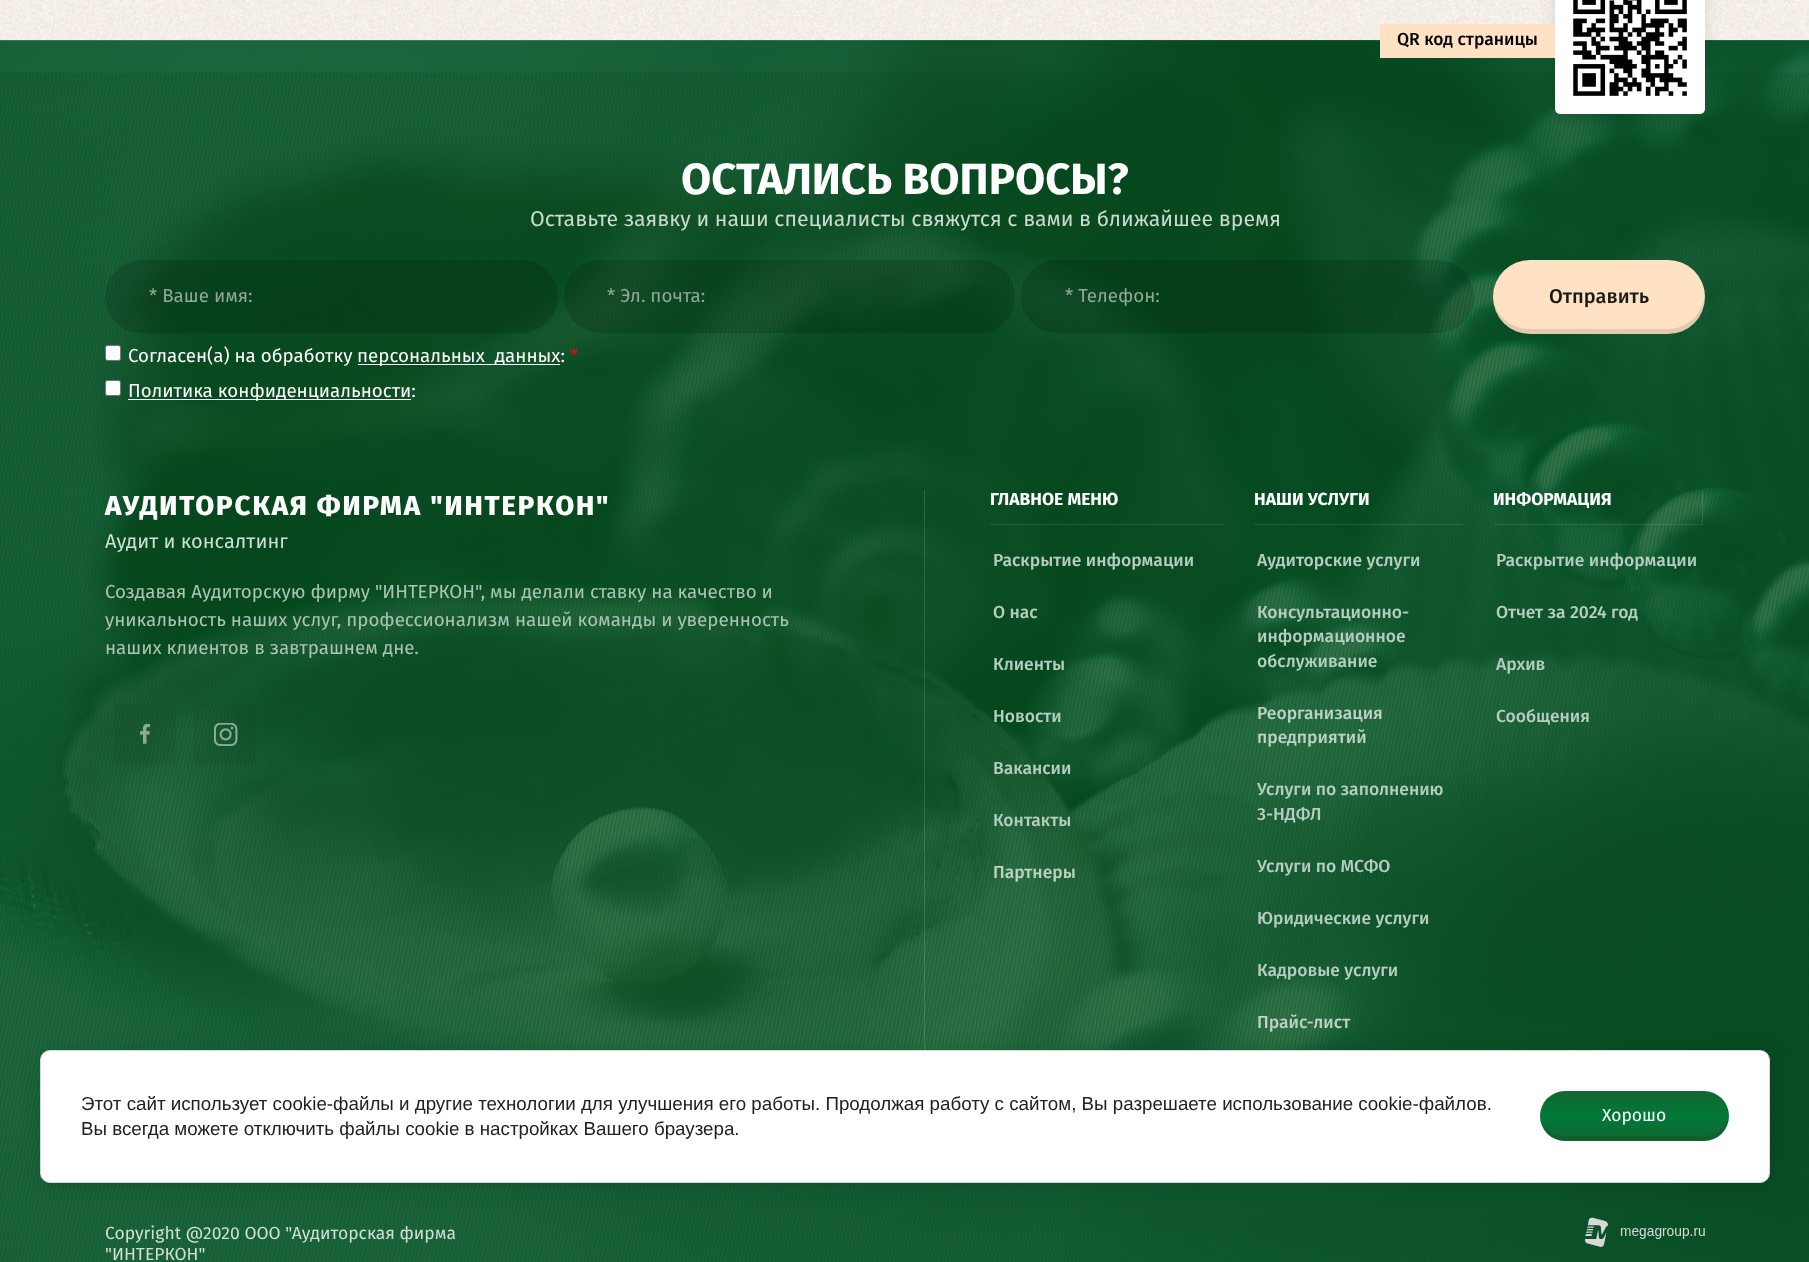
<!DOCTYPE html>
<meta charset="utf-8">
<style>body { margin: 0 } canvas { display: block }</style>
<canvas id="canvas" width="1809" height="1262"></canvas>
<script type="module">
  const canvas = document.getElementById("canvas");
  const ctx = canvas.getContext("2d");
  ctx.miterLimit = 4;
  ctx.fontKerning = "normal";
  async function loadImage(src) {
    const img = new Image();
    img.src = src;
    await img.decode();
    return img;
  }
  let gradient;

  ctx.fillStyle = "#ffffff";
  ctx.fillRect(0, 0, 1809, 1262);
  ctx.drawImage(await loadImage("img1.png"), 0, 0, 1809, 41);
  ctx.drawImage(await loadImage("img3.png"), 0, 40, 1809, 1222);
  ctx.fillStyle = "rgba(0, 0, 0, 0.1)";
  ctx.filter = "blur(7.5px)";
  ctx.beginPath();
  ctx.roundRect(1555, -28, 150, 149, 5);
  ctx.fill();
  ctx.filter = "none";
  ctx.drawImage(await loadImage("img2.png"), 1555, 0, 150, 114);
  ctx.fillStyle = "#ffe2c4";
  ctx.fillRect(1380, 24, 175, 34);
  ctx.font = "500 17.5px Fira Sans";
  ctx.fillStyle = "#000000";
  ctx.fillText("QR код страницы", 1397, 45);
  ctx.font = "bold 43.75px Fira Sans";
  ctx.fillStyle = "#ffffff";
  ctx.fillText("ОСТАЛИСЬ ВОПРОСЫ?", 681, 194);
  ctx.font = "21.25px Fira Sans";
  ctx.fillStyle = "#ccd9d1";
  ctx.fillText("Оставьте заявку и наши специалисты свяжутся с вами в ближайшее время", 530, 226);
  ctx.fillStyle = "rgba(0, 0, 0, 0.14)";
  ctx.beginPath();
  ctx.roundRect(105, 260, 453, 73, 36.5);
  ctx.fill();
  ctx.font = "18.75px Fira Sans";
  ctx.fillStyle = "#90aa99";
  ctx.fillText("* Ваше имя:", 149, 302);
  ctx.fillStyle = "rgba(0, 0, 0, 0.14)";
  ctx.beginPath();
  ctx.roundRect(564, 260, 451, 73, 36.5);
  ctx.fill();
  ctx.fillStyle = "#90aa99";
  ctx.fillText("* Эл. почта:", 607, 302);
  ctx.fillStyle = "rgba(0, 0, 0, 0.14)";
  ctx.beginPath();
  ctx.roundRect(1021, 260, 453, 73, 36.5);
  ctx.fill();
  ctx.fillStyle = "#90aa99";
  ctx.fillText("* Телефон:", 1065, 302);
  ctx.fillStyle = "#ffffff";
  ctx.beginPath();
  ctx.roundRect(105.5, 345.5, 15, 15, 2);
  ctx.fill();
  ctx.strokeStyle = "#767676";
  ctx.stroke();
  ctx.fillText("Согласен(а) на обработку", 128, 362);
  ctx.fillRect(358, 364, 202, 1);
  ctx.fillText("персональных  данных:", 357, 362);
  ctx.fillStyle = "#ff0000";
  ctx.fillText("*", 570, 362);
  ctx.fillStyle = "#ffe2c4";
  ctx.beginPath();
  ctx.roundRect(1493, 260, 212, 74, 37);
  ctx.fill();
  ctx.fillStyle = "rgba(0, 0, 0, 0.11)";
  ctx.beginPath();
  ctx.moveTo(1493, 301);
  ctx.bezierCurveTo(1495, 320, 1511, 334, 1530, 334);
  ctx.lineTo(1668, 334);
  ctx.bezierCurveTo(1688, 334, 1705, 317, 1705, 297);
  ctx.lineTo(1705, 294);
  ctx.bezierCurveTo(1704, 313, 1687, 329, 1668, 329);
  ctx.lineTo(1529, 329);
  ctx.bezierCurveTo(1512, 329, 1498, 317, 1493, 301);
  ctx.closePath();
  ctx.fill();
  ctx.font = "500 20px Fira Sans";
  ctx.fillStyle = "#1a1a1a";
  ctx.fillText("Отправить", 1549, 303);
  ctx.fillStyle = "#ffffff";
  ctx.beginPath();
  ctx.roundRect(105.5, 380.5, 15, 15, 2);
  ctx.fill();
  ctx.stroke();
  ctx.fillRect(128, 399, 283, 1);
  ctx.font = "18.75px Fira Sans";
  ctx.fillText("Политика конфиденциальности:", 128, 397);
  ctx.letterSpacing = "1.9px";
  ctx.font = "800 27.5px Fira Sans";
  ctx.fillText("АУДИТОРСКАЯ ФИРМА \"ИНТЕРКОН\"", 105, 515);
  ctx.letterSpacing = "0px";
  ctx.font = "20px Fira Sans";
  ctx.fillStyle = "#d1dfd7";
  ctx.fillText("Аудит и консалтинг", 105, 548);
  ctx.font = "18.75px Fira Sans";
  ctx.fillStyle = "#acc3b5";
  ctx.fillText("Создавая Аудиторскую фирму \"ИНТЕРКОН\", мы делали ставку на качество и", 105, 598);
  ctx.fillText("уникальность наших услуг, профессионализм нашей команды и уверенность", 105, 626);
  ctx.fillText("наших клиентов в завтрашнем дне.", 105, 654);
  ctx.fillStyle = "rgba(0, 0, 0, 0.04)";
  ctx.fillRect(114, 703, 62, 62);
  ctx.drawImage(await loadImage("img4.png"), 140, 724, 10, 20);
  ctx.fillRect(194, 703, 62, 62);
  ctx.drawImage(await loadImage("img5.png"), 214, 723, 24, 23);
  ctx.fillStyle = "rgba(255, 255, 255, 0.14)";
  ctx.fillRect(924, 490, 1, 560);
  ctx.fillStyle = "rgba(255, 255, 255, 0.1)";
  ctx.beginPath();
  ctx.moveTo(990, 524);
  ctx.lineTo(990, 525);
  ctx.lineTo(1224, 525);
  ctx.lineTo(1224, 491);
  ctx.lineTo(1224, 524);
  ctx.closePath();
  ctx.fill();
  ctx.font = "bold 17.5px Fira Sans";
  ctx.fillStyle = "#ffffff";
  ctx.fillText("ГЛАВНОЕ МЕНЮ", 990, 505);
  ctx.font = "500 17.5px Fira Sans";
  ctx.fillStyle = "#b7cdc1";
  ctx.fillText("Раскрытие информации", 993, 566);
  ctx.fillText("О нас", 993, 618);
  ctx.fillText("Клиенты", 993, 670);
  ctx.fillText("Новости", 993, 722);
  ctx.fillText("Вакансии", 993, 774);
  ctx.fillText("Контакты", 993, 826);
  ctx.fillStyle = "#bdd1c5";
  ctx.fillText("Партнеры", 993, 878);
  ctx.fillStyle = "rgba(255, 255, 255, 0.1)";
  ctx.beginPath();
  ctx.moveTo(1254, 524);
  ctx.lineTo(1254, 525);
  ctx.lineTo(1464, 525);
  ctx.lineTo(1464, 491);
  ctx.lineTo(1464, 524);
  ctx.closePath();
  ctx.fill();
  ctx.font = "bold 17.5px Fira Sans";
  ctx.fillStyle = "#ffffff";
  ctx.fillText("НАШИ УСЛУГИ", 1254, 505);
  ctx.font = "500 17.5px Fira Sans";
  ctx.fillStyle = "#b7cdc1";
  ctx.fillText("Аудиторские услуги", 1257, 566);
  ctx.fillText("Консультационно-", 1257, 618);
  ctx.fillText("информационное", 1257, 642);
  ctx.fillText("обслуживание", 1257, 667);
  ctx.fillStyle = "#bdd1c5";
  ctx.fillText("Реорганизация", 1257, 719);
  ctx.fillText("предприятий", 1257, 743);
  ctx.fillStyle = "#b7cdc1";
  ctx.fillText("Услуги по заполнению", 1257, 795);
  ctx.fillText("3-НДФЛ", 1257, 820);
  ctx.fillText("Услуги по МСФО", 1257, 872);
  ctx.fillText("Юридические услуги", 1257, 924);
  ctx.fillText("Кадровые услуги", 1257, 976);
  ctx.fillStyle = "#bdd1c5";
  ctx.fillText("Прайс-лист", 1257, 1028);
  ctx.fillStyle = "rgba(255, 255, 255, 0.1)";
  ctx.beginPath();
  ctx.moveTo(1494, 524);
  ctx.lineTo(1494, 525);
  ctx.lineTo(1703, 525);
  ctx.lineTo(1703, 491);
  ctx.lineTo(1702, 491);
  ctx.lineTo(1702, 524);
  ctx.closePath();
  ctx.fill();
  ctx.font = "bold 17.5px Fira Sans";
  ctx.fillStyle = "#ffffff";
  ctx.fillText("ИНФОРМАЦИЯ", 1493, 505);
  ctx.font = "500 17.5px Fira Sans";
  ctx.fillStyle = "#b7cdc1";
  ctx.fillText("Раскрытие информации", 1496, 566);
  ctx.fillText("Отчет за 2024 год", 1496, 618);
  ctx.fillText("Архив", 1496, 670);
  ctx.fillText("Сообщения", 1496, 722);
  ctx.font = "17.5px Fira Sans";
  ctx.fillStyle = "#d1dfd7";
  ctx.fillText("Copyright @2020 ООО \"Аудиторская фирма", 105, 1239);
  ctx.fillText("\"ИНТЕРКОН\"", 105, 1260);
  ctx.drawImage(await loadImage("img6.png"), 1585, 1217, 120, 30);
  ctx.fillStyle = "rgba(0, 0, 0, 0.14)";
  ctx.filter = "blur(11px)";
  ctx.beginPath();
  ctx.roundRect(43, 1053, 1730, 132, 10);
  ctx.fill();
  ctx.filter = "none";
  ctx.fillStyle = "#ffffff";
  ctx.beginPath();
  ctx.roundRect(40.5, 1050.5, 1729, 132, 9.5);
  ctx.fill();
  ctx.strokeStyle = "#d6d6d6";
  ctx.stroke();
  ctx.font = "18.75px Liberation Sans";
  ctx.fillStyle = "#212121";
  ctx.fillText("Этот сайт использует cookie-файлы и другие технологии для улучшения его работы. Продолжая работу с сайтом, Вы разрешаете использование cookie-файлов.", 81, 1110);
  ctx.fillText("Вы всегда можете отключить файлы cookie в настройках Вашего браузера.", 81, 1135);
  gradient = ctx.createLinearGradient(1634, 1141, 1634, 1091);
  gradient.addColorStop(0, "#146634");
  gradient.addColorStop(0.51, "#007936");
  gradient.addColorStop(1, "#146634");
  ctx.fillStyle = gradient;
  ctx.beginPath();
  ctx.roundRect(1540, 1091, 189, 50, 25);
  ctx.fill();
  ctx.fillStyle = "rgba(0, 0, 0, 0.08)";
  ctx.beginPath();
  ctx.moveTo(1540, 1114);
  ctx.lineTo(1540, 1116);
  ctx.bezierCurveTo(1540, 1130, 1551, 1141, 1565, 1141);
  ctx.lineTo(1704, 1141);
  ctx.bezierCurveTo(1718, 1141, 1729, 1130, 1729, 1116);
  ctx.lineTo(1729, 1114);
  ctx.bezierCurveTo(1728, 1126, 1717, 1136, 1704, 1136);
  ctx.lineTo(1565, 1136);
  ctx.bezierCurveTo(1552, 1136, 1541, 1126, 1540, 1114);
  ctx.closePath();
  ctx.fill();
  ctx.font = "17.5px Fira Sans";
  ctx.fillStyle = "#ffffff";
  ctx.fillText("Хорошо", 1602, 1121);
</script>
